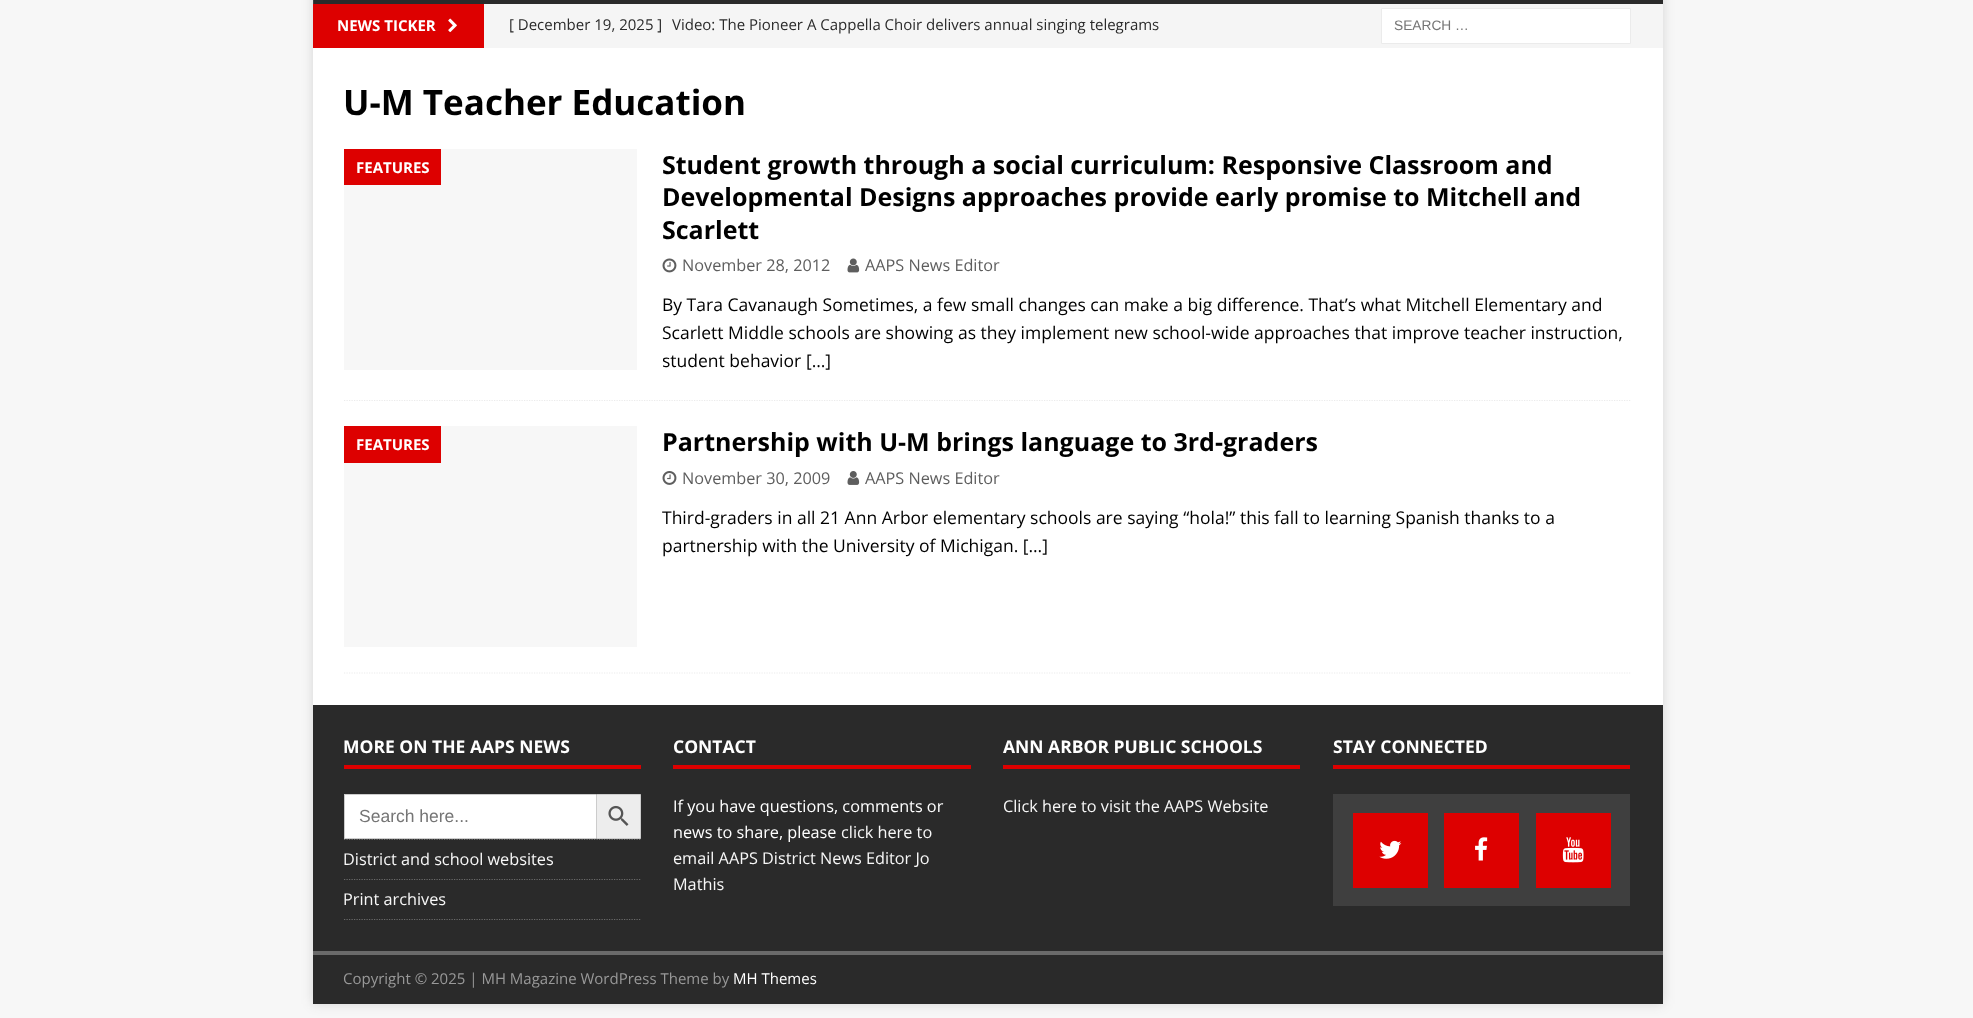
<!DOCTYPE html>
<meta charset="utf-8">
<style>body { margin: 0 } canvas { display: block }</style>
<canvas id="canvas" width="1973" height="1018"></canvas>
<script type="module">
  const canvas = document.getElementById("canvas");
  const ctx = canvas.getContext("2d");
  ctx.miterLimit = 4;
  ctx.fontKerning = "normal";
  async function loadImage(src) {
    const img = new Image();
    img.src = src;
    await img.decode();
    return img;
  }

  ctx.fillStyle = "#f7f7f7";
  ctx.fillRect(0, 0, 1973, 1018);
  ctx.fillStyle = "rgba(50, 50, 50, 0.17)";
  ctx.filter = "blur(6px)";
  ctx.beginPath();
  ctx.rect(313, -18, 1350, 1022);
  ctx.fill();
  ctx.filter = "none";
  ctx.fillStyle = "#2a2a2a";
  ctx.fillRect(313, 0, 1350, 4);
  ctx.fillStyle = "#3f3f3f";
  ctx.fillRect(313, 0, 1, 4);
  ctx.fillStyle = "#f5f5f5";
  ctx.fillRect(484, 4, 1179, 44);
  ctx.fillStyle = "#dd0000";
  ctx.fillRect(313, 4, 171, 44);
  ctx.font = "bold 15px Open Sans";
  ctx.fillStyle = "#ffffff";
  ctx.fillText("NEWS TICKER", 337, 31);
  ctx.drawImage(await loadImage("img1.png"), 448, 18, 9, 15);
  ctx.font = "15px Open Sans";
  ctx.fillStyle = "#2a2a2a";
  ctx.fillText("[ December 19, 2025 ]", 509, 30);
  ctx.fillText("Video: The Pioneer A Cappella Choir delivers annual singing telegrams", 672, 30);
  ctx.fillStyle = "#ffffff";
  ctx.beginPath();
  ctx.rect(1381.5, 8.5, 249, 35);
  ctx.fill();
  ctx.strokeStyle = "#ebebeb";
  ctx.stroke();
  ctx.font = "13.75px Liberation Sans";
  ctx.fillStyle = "#757575";
  ctx.fillText("SEARCH …", 1394, 30);
  ctx.fillStyle = "#ffffff";
  ctx.fillRect(313, 48, 1350, 657);
  ctx.font = "bold 35px Open Sans";
  ctx.fillStyle = "#000000";
  ctx.fillText("U-M Teacher Education", 343, 115);
  ctx.beginPath();
  ctx.moveTo(344, 400.5);
  ctx.lineTo(1631, 400.5);
  ctx.lineWidth = 1.2;
  ctx.setLineDash([1.25, 1.25]);
  ctx.stroke();
  ctx.fillStyle = "#f7f7f7";
  ctx.fillRect(344, 149, 293, 221);
  ctx.fillStyle = "#dd0000";
  ctx.fillRect(344, 149, 97, 36);
  ctx.font = "bold 15px Open Sans";
  ctx.fillStyle = "#ffffff";
  ctx.fillText("FEATURES", 356, 173);
  ctx.font = "bold 25px Open Sans";
  ctx.fillStyle = "#000000";
  ctx.fillText("Student growth through a social curriculum: Responsive Classroom and", 662, 174);
  ctx.fillText("Developmental Designs approaches provide early promise to Mitchell and", 662, 206);
  ctx.fillText("Scarlett", 662, 239);
  ctx.drawImage(await loadImage("img2.png"), 662, 258, 15, 15);
  ctx.font = "16.25px Open Sans";
  ctx.fillStyle = "#5e5e5e";
  ctx.fillText("November 28, 2012", 682, 271);
  ctx.drawImage(await loadImage("img3.png"), 847, 258, 13, 15);
  ctx.fillText("AAPS News Editor", 865, 271);
  ctx.font = "17.5px Open Sans";
  ctx.fillStyle = "#000000";
  ctx.fillText("By Tara Cavanaugh Sometimes, a few small changes can make a big difference. That’s what Mitchell Elementary and", 662, 311);
  ctx.fillText("Scarlett Middle schools are showing as they implement new school-wide approaches that improve teacher instruction,", 662, 339);
  ctx.save();
  ctx.beginPath();
  ctx.rect(663, 291, 968, 84);
  ctx.clip();
  ctx.fillText("student behavior", 662, 367);
  ctx.restore();
  ctx.fillText("[…]", 806, 367);
  ctx.beginPath();
  ctx.moveTo(344, 673);
  ctx.lineTo(1631, 673);
  ctx.stroke();
  ctx.fillStyle = "#f7f7f7";
  ctx.fillRect(344, 426, 293, 221);
  ctx.fillStyle = "#dd0000";
  ctx.fillRect(344, 426, 97, 37);
  ctx.font = "bold 15px Open Sans";
  ctx.fillStyle = "#ffffff";
  ctx.fillText("FEATURES", 356, 450);
  ctx.font = "bold 25px Open Sans";
  ctx.fillStyle = "#000000";
  ctx.fillText("Partnership with U-M brings language to 3rd-graders", 662, 451);
  ctx.drawImage(await loadImage("img4.png"), 662, 471, 15, 14);
  ctx.font = "16.25px Open Sans";
  ctx.fillStyle = "#5e5e5e";
  ctx.fillText("November 30, 2009", 682, 484);
  ctx.drawImage(await loadImage("img5.png"), 847, 471, 13, 14);
  ctx.fillText("AAPS News Editor", 865, 484);
  ctx.font = "17.5px Open Sans";
  ctx.fillStyle = "#000000";
  ctx.fillText("Third-graders in all 21 Ann Arbor elementary schools are saying “hola!” this fall to learning Spanish thanks to a", 662, 524);
  ctx.fillText("partnership with the University of Michigan. […]", 662, 552);
  ctx.fillStyle = "#2a2a2a";
  ctx.fillRect(313, 705, 1350, 246);
  ctx.fillStyle = "#dd0000";
  ctx.fillRect(344, 765, 297, 4);
  ctx.font = "bold 17.5px Open Sans";
  ctx.fillStyle = "#ffffff";
  ctx.fillText("MORE ON THE AAPS NEWS", 343, 753);
  ctx.beginPath();
  ctx.moveTo(344, 839.5);
  ctx.lineTo(641, 839.5);
  ctx.strokeStyle = "#6a6a6a";
  ctx.stroke();
  ctx.fillRect(345, 795, 251, 43);
  ctx.fillStyle = "#cccccc";
  ctx.fillRect(344, 794, 252, 1);
  ctx.fillRect(344, 838, 252, 1);
  ctx.fillRect(344, 794, 1, 45);
  ctx.font = "17.5px Liberation Sans";
  ctx.fillStyle = "#757575";
  ctx.fillText("Search here...", 359, 822);
  ctx.fillStyle = "#ededed";
  ctx.beginPath();
  ctx.rect(596.5, 794.5, 44, 44);
  ctx.fill();
  ctx.strokeStyle = "#cccccc";
  ctx.lineWidth = 1;
  ctx.setLineDash([]);
  ctx.stroke();
  ctx.drawImage(await loadImage("img6.png"), 608, 805, 21, 21);
  ctx.beginPath();
  ctx.moveTo(344, 879.5);
  ctx.lineTo(641, 879.5);
  ctx.strokeStyle = "#6a6a6a";
  ctx.lineWidth = 1.2;
  ctx.setLineDash([1.25, 1.25]);
  ctx.stroke();
  ctx.font = "16.25px Open Sans";
  ctx.fillStyle = "#f7f7f7";
  ctx.fillText("District and school websites", 343, 865);
  ctx.save();
  ctx.beginPath();
  ctx.rect(344, 736, 297, 184);
  ctx.clip();
  ctx.beginPath();
  ctx.moveTo(344, 919.5);
  ctx.lineTo(641, 919.5);
  ctx.stroke();
  ctx.restore();
  ctx.fillText("Print archives", 343, 905);
  ctx.fillStyle = "#dd0000";
  ctx.fillRect(673, 765, 298, 4);
  ctx.font = "bold 17.5px Open Sans";
  ctx.fillStyle = "#ffffff";
  ctx.fillText("CONTACT", 673, 753);
  ctx.font = "16.25px Open Sans";
  ctx.fillText("If you have questions, comments or", 673, 812);
  ctx.fillText("news to share, please", 673, 838);
  ctx.fillStyle = "#f7f7f7";
  ctx.fillText("click here to", 841, 838);
  ctx.fillText("email AAPS District News Editor Jo", 673, 864);
  ctx.fillText("Mathis", 673, 890);
  ctx.fillStyle = "#dd0000";
  ctx.fillRect(1003, 765, 297, 4);
  ctx.font = "bold 17.5px Open Sans";
  ctx.fillStyle = "#ffffff";
  ctx.fillText("ANN ARBOR PUBLIC SCHOOLS", 1003, 753);
  ctx.font = "16.25px Open Sans";
  ctx.fillStyle = "#f7f7f7";
  ctx.fillText("Click here to visit the AAPS Website", 1003, 812);
  ctx.fillStyle = "#dd0000";
  ctx.fillRect(1333, 765, 297, 4);
  ctx.font = "bold 17.5px Open Sans";
  ctx.fillStyle = "#ffffff";
  ctx.fillText("STAY CONNECTED", 1333, 753);
  ctx.fillStyle = "#3f3f3f";
  ctx.fillRect(1333, 794, 297, 112);
  ctx.fillStyle = "#dd0000";
  ctx.fillRect(1353, 813, 75, 75);
  ctx.drawImage(await loadImage("img7.png"), 1379, 840, 23, 19);
  ctx.fillRect(1444, 813, 75, 75);
  ctx.drawImage(await loadImage("img8.png"), 1475, 837, 13, 24);
  ctx.fillRect(1536, 813, 75, 75);
  ctx.drawImage(await loadImage("img9.png"), 1562, 837, 22, 26);
  ctx.fillStyle = "#2a2a2a";
  ctx.fillRect(313, 955, 1350, 49);
  ctx.fillStyle = "#6a6a6a";
  ctx.fillRect(313, 951, 1350, 4);
  ctx.font = "15px Open Sans";
  ctx.fillStyle = "#999999";
  ctx.fillText("Copyright © 2025 | MH Magazine WordPress Theme by", 343, 984);
  ctx.fillStyle = "#ffffff";
  ctx.fillText("MH Themes", 733, 984);
</script>
